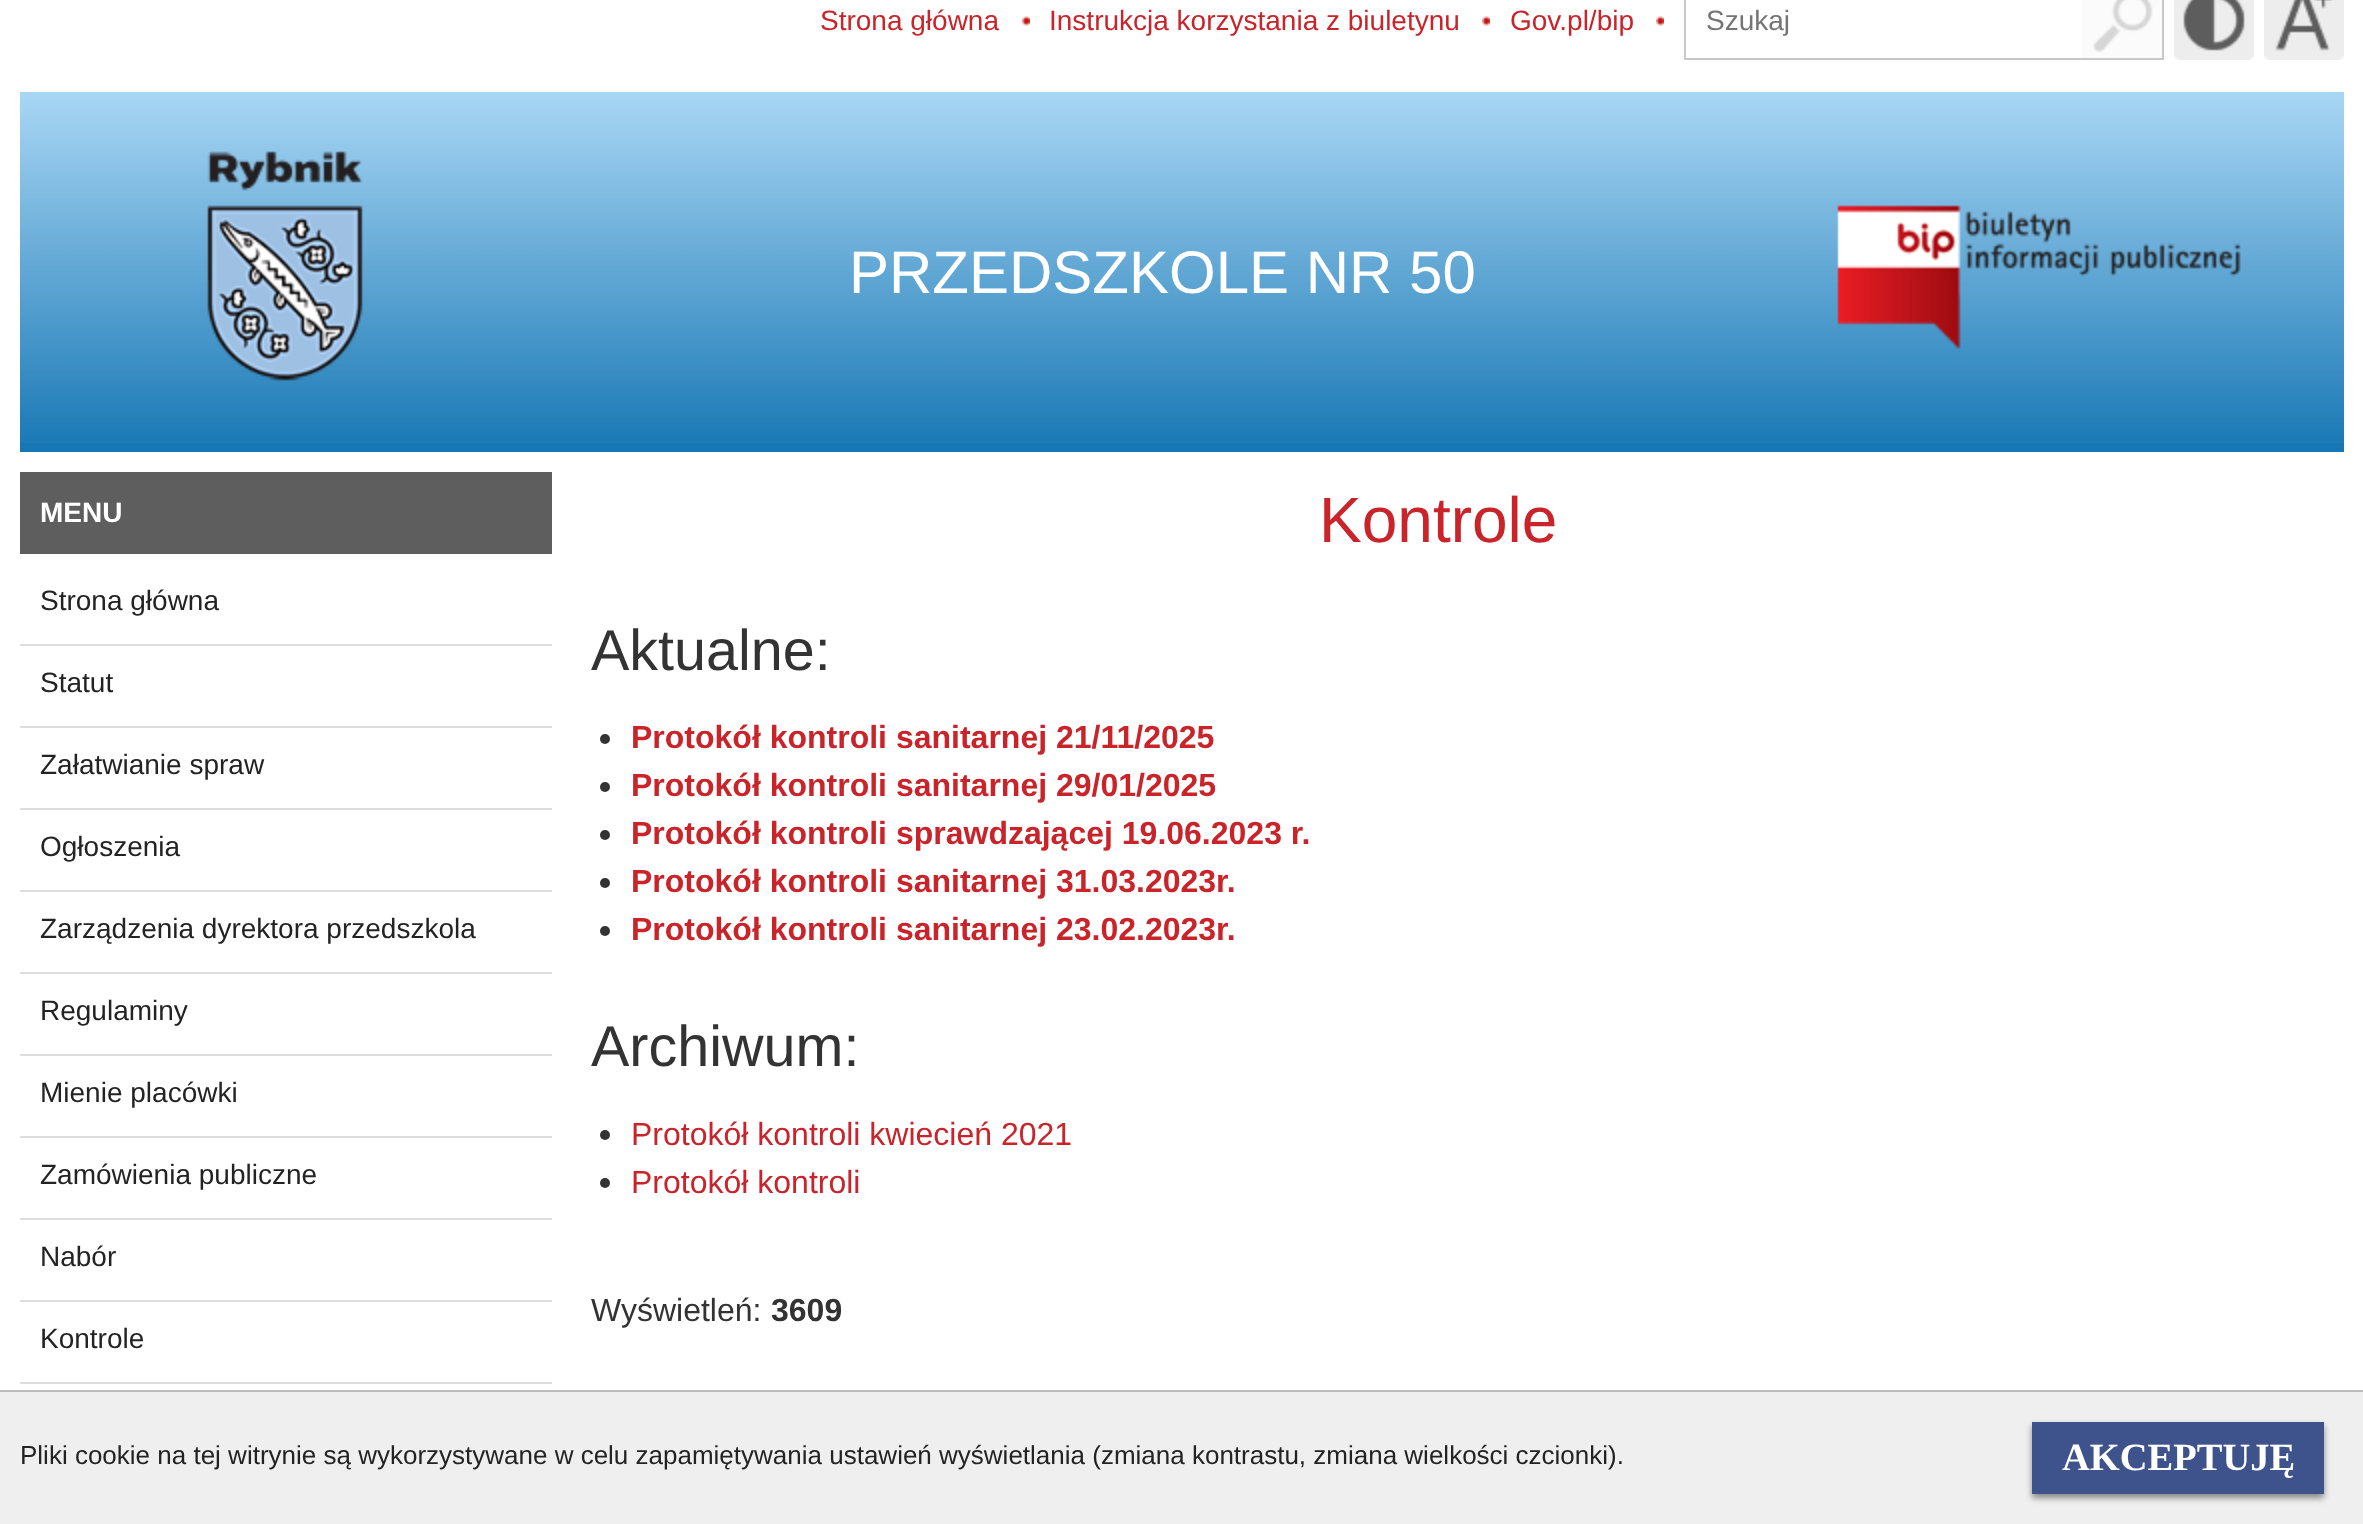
<!DOCTYPE html>
<meta charset="utf-8">
<style>body { margin: 0 } canvas { display: block }</style>
<canvas id="canvas" width="2363" height="1524"></canvas>
<script type="module">
  const canvas = document.getElementById("canvas");
  const ctx = canvas.getContext("2d");
  ctx.miterLimit = 4;
  ctx.fontKerning = "normal";
  async function loadImage(src) {
    const img = new Image();
    img.src = src;
    await img.decode();
    return img;
  }

  ctx.fillStyle = "#ffffff";
  ctx.fillRect(0, 0, 2363, 1524);
  ctx.drawImage(await loadImage("img1.png"), 1022, 16, 8, 10);
  ctx.font = "28px Liberation Sans";
  ctx.fillStyle = "#c8242a";
  ctx.fillText("Strona główna", 820, 30);
  ctx.drawImage(await loadImage("img1.png"), 1482, 16, 8, 10);
  ctx.fillText("Instrukcja korzystania z biuletynu", 1049, 30);
  ctx.drawImage(await loadImage("img1.png"), 1656, 16, 8, 10);
  ctx.fillText("Gov.pl/bip", 1510, 30);
  ctx.strokeStyle = "#c8c8c8";
  ctx.lineWidth = 2;
  ctx.strokeRect(1685, -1, 478, 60);
  ctx.fillStyle = "#757575";
  ctx.fillText("Szukaj", 1706, 30);
  ctx.drawImage(await loadImage("img2.png"), 2082, 0, 80, 58);
  ctx.drawImage(await loadImage("img3.png"), 2174, 0, 80, 60);
  ctx.drawImage(await loadImage("img4.png"), 2264, 0, 80, 60);
  ctx.fillStyle = "#1777b4";
  ctx.fillRect(20, 443, 2324, 9);
  ctx.drawImage(await loadImage("img5.png"), 20, 92, 2324, 351);
  ctx.drawImage(await loadImage("img6.png"), 207, 151, 156, 230);
  ctx.font = "60px Liberation Sans";
  ctx.fillStyle = "#ffffff";
  ctx.fillText("PRZEDSZKOLE NR 50", 849, 293);
  ctx.drawImage(await loadImage("img7.png"), 1837, 205, 404, 144);
  ctx.fillStyle = "#5e5e5e";
  ctx.fillRect(20, 472, 532, 82);
  ctx.font = "bold 28px Liberation Sans";
  ctx.fillStyle = "#ffffff";
  ctx.fillText("MENU", 40, 522);
  ctx.fillStyle = "#dddddd";
  ctx.fillRect(20, 644, 532, 2);
  ctx.font = "28px Liberation Sans";
  ctx.fillStyle = "#232323";
  ctx.fillText("Strona główna", 40, 610);
  ctx.fillStyle = "#dddddd";
  ctx.fillRect(20, 726, 532, 2);
  ctx.fillStyle = "#232323";
  ctx.fillText("Statut", 40, 692);
  ctx.fillStyle = "#dddddd";
  ctx.fillRect(20, 808, 532, 2);
  ctx.fillStyle = "#232323";
  ctx.fillText("Załatwianie spraw", 40, 774);
  ctx.fillStyle = "#dddddd";
  ctx.fillRect(20, 890, 532, 2);
  ctx.fillStyle = "#232323";
  ctx.fillText("Ogłoszenia", 40, 856);
  ctx.fillStyle = "#dddddd";
  ctx.fillRect(20, 972, 532, 2);
  ctx.fillStyle = "#232323";
  ctx.fillText("Zarządzenia dyrektora przedszkola", 40, 938);
  ctx.fillStyle = "#dddddd";
  ctx.fillRect(20, 1054, 532, 2);
  ctx.fillStyle = "#232323";
  ctx.fillText("Regulaminy", 40, 1020);
  ctx.fillStyle = "#dddddd";
  ctx.fillRect(20, 1136, 532, 2);
  ctx.fillStyle = "#232323";
  ctx.fillText("Mienie placówki", 40, 1102);
  ctx.fillStyle = "#dddddd";
  ctx.fillRect(20, 1218, 532, 2);
  ctx.fillStyle = "#232323";
  ctx.fillText("Zamówienia publiczne", 40, 1184);
  ctx.fillStyle = "#dddddd";
  ctx.fillRect(20, 1300, 532, 2);
  ctx.fillStyle = "#232323";
  ctx.fillText("Nabór", 40, 1266);
  ctx.fillStyle = "#dddddd";
  ctx.fillRect(20, 1382, 532, 2);
  ctx.fillStyle = "#232323";
  ctx.fillText("Kontrole", 40, 1348);
  ctx.font = "64px Liberation Sans";
  ctx.fillStyle = "#c8242a";
  ctx.fillText("Kontrole", 1319, 542);
  ctx.font = "57.5px Liberation Sans";
  ctx.fillStyle = "#333333";
  ctx.fillText("Aktualne:", 591, 670);
  ctx.beginPath();
  ctx.arc(605, 739, 5, 0, Math.PI * 2);
  ctx.fill();
  ctx.font = "bold 32px Liberation Sans";
  ctx.fillStyle = "#c8242a";
  ctx.fillText("Protokół kontroli sanitarnej 21/11/2025", 631, 748);
  ctx.fillStyle = "#333333";
  ctx.beginPath();
  ctx.arc(605, 787, 5, 0, Math.PI * 2);
  ctx.fill();
  ctx.fillStyle = "#c8242a";
  ctx.fillText("Protokół kontroli sanitarnej 29/01/2025", 631, 796);
  ctx.fillStyle = "#333333";
  ctx.beginPath();
  ctx.arc(605, 835, 5, 0, Math.PI * 2);
  ctx.fill();
  ctx.fillStyle = "#c8242a";
  ctx.fillText("Protokół kontroli sprawdzającej 19.06.2023 r.", 631, 844);
  ctx.fillStyle = "#333333";
  ctx.beginPath();
  ctx.arc(605, 883, 5, 0, Math.PI * 2);
  ctx.fill();
  ctx.fillStyle = "#c8242a";
  ctx.fillText("Protokół kontroli sanitarnej 31.03.2023r.", 631, 892);
  ctx.fillStyle = "#333333";
  ctx.beginPath();
  ctx.arc(605, 931, 5, 0, Math.PI * 2);
  ctx.fill();
  ctx.fillStyle = "#c8242a";
  ctx.fillText("Protokół kontroli sanitarnej 23.02.2023r.", 631, 940);
  ctx.font = "57.5px Liberation Sans";
  ctx.fillStyle = "#333333";
  ctx.fillText("Archiwum:", 591, 1066);
  ctx.beginPath();
  ctx.arc(605, 1135, 5, 0, Math.PI * 2);
  ctx.fill();
  ctx.font = "32px Liberation Sans";
  ctx.fillStyle = "#c8242a";
  ctx.fillText("Protokół kontroli kwiecień 2021", 631, 1145);
  ctx.fillStyle = "#333333";
  ctx.beginPath();
  ctx.arc(605, 1183, 5, 0, Math.PI * 2);
  ctx.fill();
  ctx.fillStyle = "#c8242a";
  ctx.fillText("Protokół kontroli", 631, 1193);
  ctx.fillStyle = "#333333";
  ctx.fillText("Wyświetleń:", 591, 1321);
  ctx.font = "bold 32px Liberation Sans";
  ctx.fillText("3609", 771, 1321);
  ctx.fillStyle = "#efefef";
  ctx.fillRect(0, 1392, 2363, 132);
  ctx.fillStyle = "#bcbcbc";
  ctx.fillRect(0, 1390, 2363, 2);
  ctx.font = "26px Liberation Sans";
  ctx.fillStyle = "#232323";
  ctx.fillText("Pliki cookie na tej witrynie są wykorzystywane w celu zapamiętywania ustawień wyświetlania (zmiana kontrastu, zmiana wielkości czcionki).", 20, 1464);
  ctx.fillStyle = "#888888";
  ctx.filter = "blur(3px)";
  ctx.beginPath();
  ctx.rect(2032, 1426, 292, 72);
  ctx.fill();
  ctx.filter = "none";
  ctx.fillStyle = "#3e528b";
  ctx.fillRect(2032, 1422, 292, 72);
  ctx.font = "bold 38.5px Liberation Serif";
  ctx.fillStyle = "#ffffff";
  ctx.fillText("AKCEPTUJĘ", 2062, 1470);
</script>
